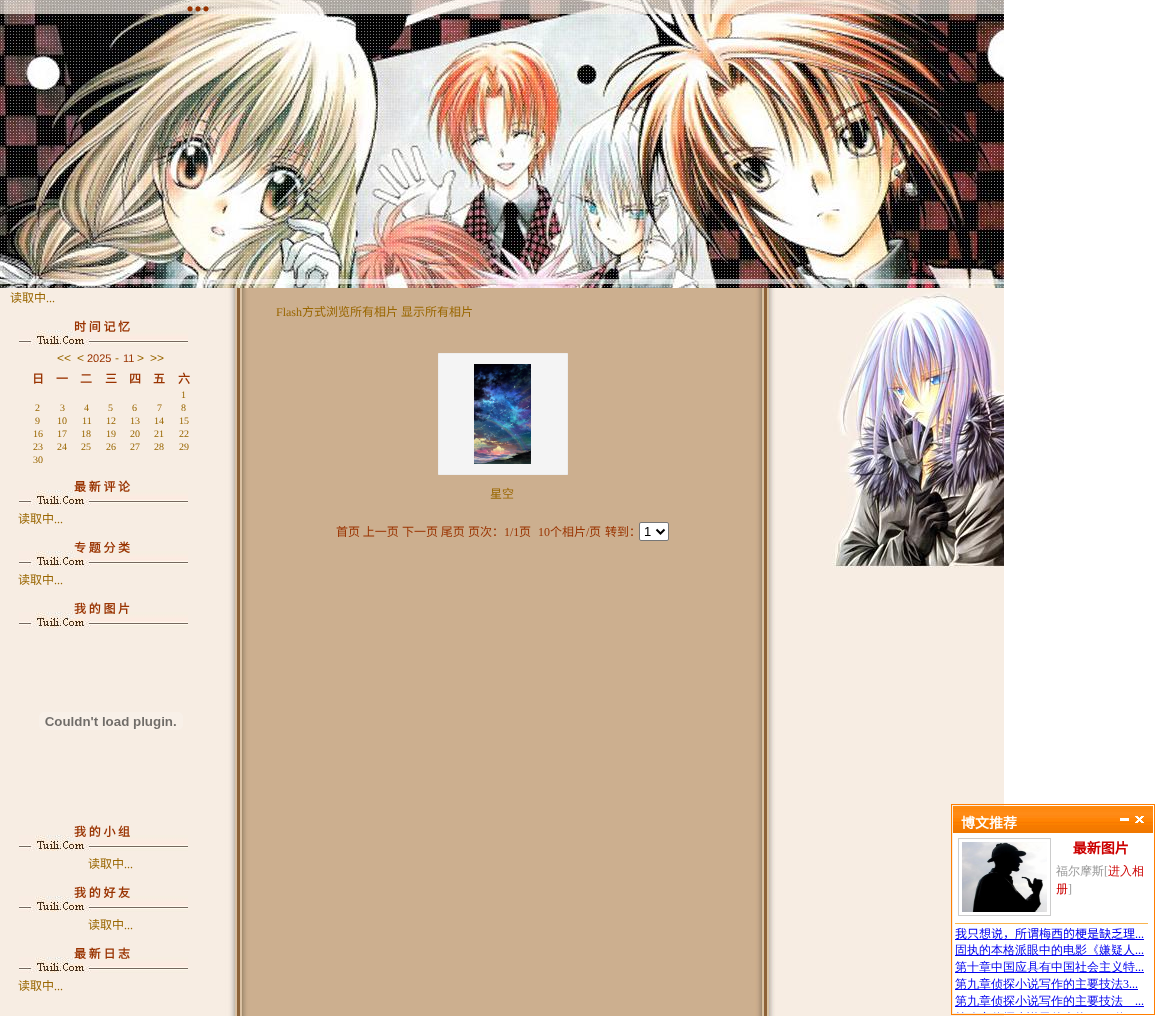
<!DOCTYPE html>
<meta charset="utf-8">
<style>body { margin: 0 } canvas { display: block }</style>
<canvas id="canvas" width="1155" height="1016"></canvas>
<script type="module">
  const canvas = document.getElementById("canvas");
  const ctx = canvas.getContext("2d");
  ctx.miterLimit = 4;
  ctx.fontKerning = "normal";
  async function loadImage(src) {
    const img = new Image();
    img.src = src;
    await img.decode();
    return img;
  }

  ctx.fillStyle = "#ffffff";
  ctx.fillRect(0, 0, 1155, 1016);
  ctx.drawImage(await loadImage("img1.png"), 0, 0, 1004, 14);
  ctx.font = "bold 32px Liberation Serif";
  ctx.fillStyle = "#993300";
  ctx.fillText("...", 186, 11);
  ctx.drawImage(await loadImage("img2.png"), 0, 14, 1004, 274);
  ctx.drawImage(await loadImage("img3.png"), 0, 288, 1004, 728);
  ctx.font = "12px Noto Sans CJK SC";
  ctx.fillStyle = "#996600";
  ctx.fillText("读取中", 10, 302);
  ctx.font = "12px Liberation Serif";
  ctx.fillText("...", 46, 302);
  ctx.drawImage(await loadImage("img4.png"), 19, 330, 169, 16);
  ctx.font = "bold 12px Noto Sans CJK SC";
  ctx.fillStyle = "#993300";
  ctx.fillText("时 间 记 忆", 74, 331);
  ctx.font = "12px Liberation Sans";
  ctx.fillStyle = "#996600";
  ctx.fillText("<<", 57, 362);
  ctx.fillText("<", 77, 362);
  ctx.font = "11px Liberation Sans";
  ctx.fillStyle = "#993300";
  ctx.fillText("2025", 87, 362);
  ctx.font = "12px Liberation Sans";
  ctx.fillStyle = "#996600";
  ctx.fillText("-", 115, 362);
  ctx.font = "11px Liberation Sans";
  ctx.fillStyle = "#993300";
  ctx.fillText("11", 123, 362);
  ctx.font = "12px Liberation Sans";
  ctx.fillStyle = "#996600";
  ctx.fillText(">", 137, 362);
  ctx.fillText(">>", 150, 362);
  ctx.font = "bold 12px Noto Sans CJK SC";
  ctx.fillStyle = "#993300";
  ctx.fillText("日", 32, 383);
  ctx.fillText("一", 56, 383);
  ctx.fillText("二", 80, 383);
  ctx.fillText("三", 105, 383);
  ctx.fillText("四", 129, 383);
  ctx.fillText("五", 153, 383);
  ctx.fillText("六", 178, 383);
  ctx.font = "10px Liberation Serif";
  ctx.fillStyle = "#996600";
  ctx.fillText("1", 181, 398);
  ctx.fillText("2", 35, 411);
  ctx.fillText("3", 60, 411);
  ctx.fillText("4", 84, 411);
  ctx.fillText("5", 108, 411);
  ctx.fillText("6", 132, 411);
  ctx.fillText("7", 157, 411);
  ctx.fillText("8", 181, 411);
  ctx.fillText("9", 35, 424);
  ctx.fillText("10", 57, 424);
  ctx.fillText("11", 82, 424);
  ctx.fillText("12", 106, 424);
  ctx.fillText("13", 130, 424);
  ctx.fillText("14", 154, 424);
  ctx.fillText("15", 179, 424);
  ctx.fillText("16", 33, 437);
  ctx.fillText("17", 57, 437);
  ctx.fillText("18", 81, 437);
  ctx.fillText("19", 106, 437);
  ctx.fillText("20", 130, 437);
  ctx.fillText("21", 154, 437);
  ctx.fillText("22", 179, 437);
  ctx.fillText("23", 33, 450);
  ctx.fillText("24", 57, 450);
  ctx.fillText("25", 81, 450);
  ctx.fillText("26", 106, 450);
  ctx.fillText("27", 130, 450);
  ctx.fillText("28", 154, 450);
  ctx.fillText("29", 179, 450);
  ctx.fillText("30", 33, 463);
  ctx.drawImage(await loadImage("img4.png"), 19, 490, 169, 16);
  ctx.font = "bold 12px Noto Sans CJK SC";
  ctx.fillStyle = "#993300";
  ctx.fillText("最 新 评 论", 74, 491);
  ctx.font = "12px Noto Sans CJK SC";
  ctx.fillStyle = "#996600";
  ctx.fillText("读取中", 18, 523);
  ctx.font = "12px Liberation Serif";
  ctx.fillText("...", 54, 523);
  ctx.drawImage(await loadImage("img4.png"), 19, 551, 169, 16);
  ctx.font = "bold 12px Noto Sans CJK SC";
  ctx.fillStyle = "#993300";
  ctx.fillText("专 题 分 类", 74, 552);
  ctx.font = "12px Noto Sans CJK SC";
  ctx.fillStyle = "#996600";
  ctx.fillText("读取中", 18, 584);
  ctx.font = "12px Liberation Serif";
  ctx.fillText("...", 54, 584);
  ctx.drawImage(await loadImage("img4.png"), 19, 612, 169, 16);
  ctx.font = "bold 12px Noto Sans CJK SC";
  ctx.fillStyle = "#993300";
  ctx.fillText("我 的 图 片", 74, 613);
  ctx.drawImage(await loadImage("img5.png"), 39, 712, 144, 18);
  ctx.drawImage(await loadImage("img4.png"), 19, 835, 169, 16);
  ctx.fillText("我 的 小 组", 74, 836);
  ctx.font = "12px Noto Sans CJK SC";
  ctx.fillStyle = "#996600";
  ctx.fillText("读取中", 88, 868);
  ctx.font = "12px Liberation Serif";
  ctx.fillText("...", 124, 868);
  ctx.drawImage(await loadImage("img4.png"), 19, 896, 169, 16);
  ctx.font = "bold 12px Noto Sans CJK SC";
  ctx.fillStyle = "#993300";
  ctx.fillText("我 的 好 友", 74, 897);
  ctx.font = "12px Noto Sans CJK SC";
  ctx.fillStyle = "#996600";
  ctx.fillText("读取中", 88, 929);
  ctx.font = "12px Liberation Serif";
  ctx.fillText("...", 124, 929);
  ctx.drawImage(await loadImage("img4.png"), 19, 957, 169, 16);
  ctx.font = "bold 12px Noto Sans CJK SC";
  ctx.fillStyle = "#993300";
  ctx.fillText("最 新 日 志", 74, 958);
  ctx.font = "12px Noto Sans CJK SC";
  ctx.fillStyle = "#996600";
  ctx.fillText("读取中", 18, 990);
  ctx.font = "12px Liberation Serif";
  ctx.fillText("...", 54, 990);
  ctx.fillText("Flash", 276, 316);
  ctx.font = "12px Noto Sans CJK SC";
  ctx.fillText("方式浏览所有相片", 302, 316);
  ctx.fillText("显示所有相片", 401, 316);
  ctx.fillStyle = "#f4f4f4";
  ctx.beginPath();
  ctx.rect(438.5, 353.5, 129, 121);
  ctx.fill();
  ctx.strokeStyle = "#eeeeee";
  ctx.stroke();
  ctx.drawImage(await loadImage("img6.png"), 474, 364, 57, 100);
  ctx.fillStyle = "#996600";
  ctx.fillText("星空", 490, 498);
  ctx.fillStyle = "#993300";
  ctx.fillText("首页 上一页", 336, 536);
  ctx.fillText("下一页 尾页", 402, 536);
  ctx.fillText("页次：", 468, 536);
  ctx.font = "12px Liberation Serif";
  ctx.fillText("1/1", 504, 536);
  ctx.font = "12px Noto Sans CJK SC";
  ctx.fillText("页", 519, 536);
  ctx.font = "12px Liberation Serif";
  ctx.fillText("10", 538, 536);
  ctx.font = "12px Noto Sans CJK SC";
  ctx.fillText("个相片", 550, 536);
  ctx.font = "12px Liberation Serif";
  ctx.fillText("/", 586, 536);
  ctx.font = "12px Noto Sans CJK SC";
  ctx.fillText("页", 589, 536);
  ctx.fillText("转到：", 605, 536);
  ctx.fillStyle = "#ffffff";
  ctx.beginPath();
  ctx.roundRect(639.5, 522.5, 29, 18, 1.5);
  ctx.fill();
  ctx.strokeStyle = "#767676";
  ctx.stroke();
  ctx.beginPath();
  ctx.moveTo(656.5, 529.5);
  ctx.lineTo(660.5, 533.5);
  ctx.lineTo(664.5, 529.5);
  ctx.strokeStyle = "#000000";
  ctx.lineWidth = 2;
  ctx.stroke();
  ctx.font = "13px Liberation Sans";
  ctx.fillStyle = "#000000";
  ctx.fillText("1", 644, 536);
  ctx.drawImage(await loadImage("img7.png"), 832, 288, 172, 280);
  ctx.strokeStyle = "#ff7e00";
  ctx.lineWidth = 1;
  ctx.strokeRect(951.5, 804.5, 203, 210);
  ctx.drawImage(await loadImage("img8.png"), 953, 806, 200, 27);
  ctx.font = "bold 14px Noto Sans CJK SC";
  ctx.fillStyle = "#ffffff";
  ctx.fillText("博文推荐", 961, 828);
  ctx.fillRect(1120, 818, 9, 3);
  ctx.drawImage(await loadImage("img9.png"), 1135, 816, 9, 7);
  ctx.fillRect(953, 833, 51, 180);
  ctx.drawImage(await loadImage("img10.png"), 955, 838, 193, 175);
</script>
